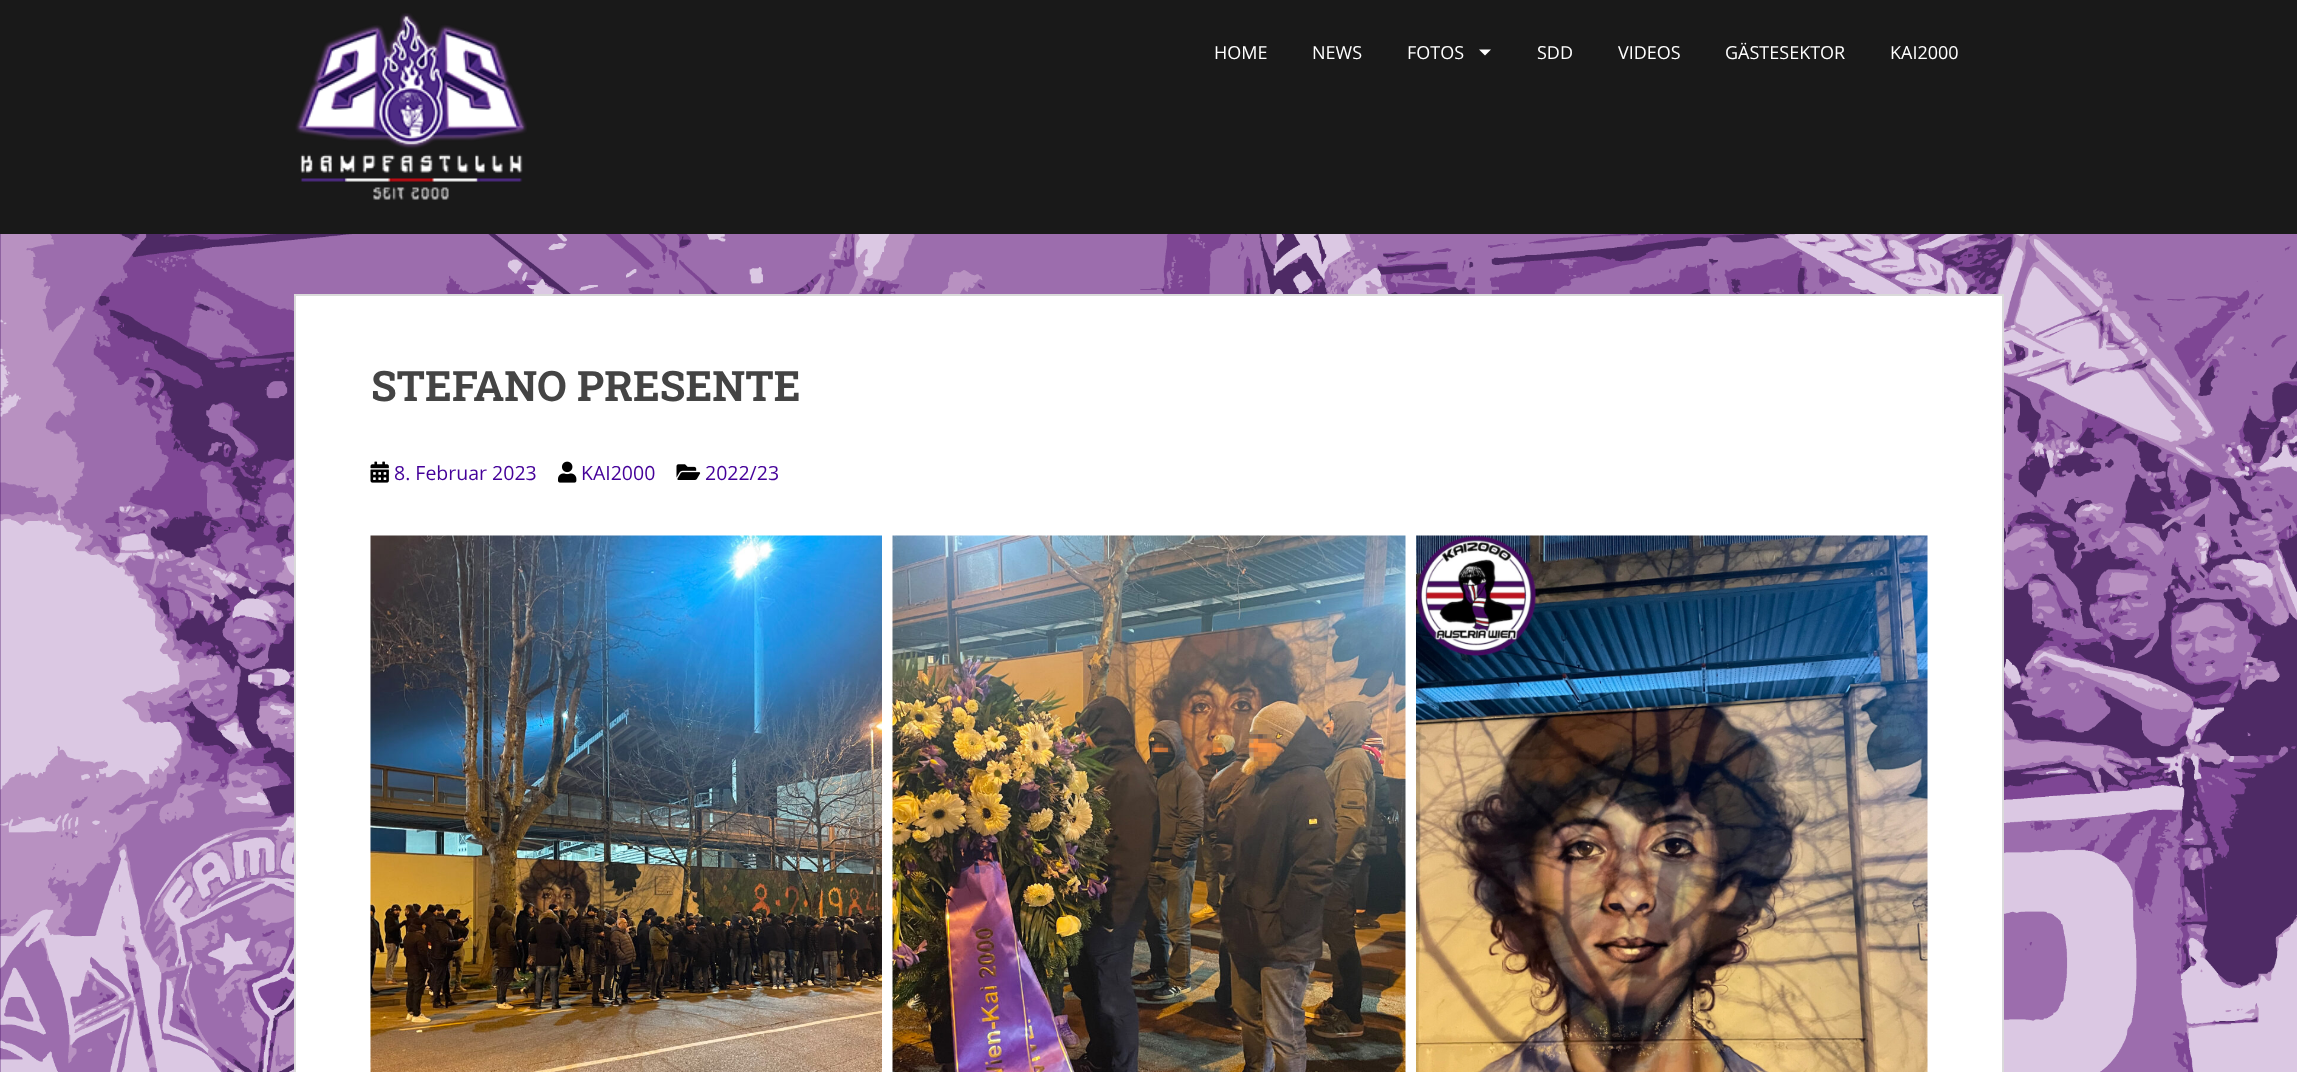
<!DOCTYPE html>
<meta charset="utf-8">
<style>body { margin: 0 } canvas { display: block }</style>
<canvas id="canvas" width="2297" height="1072"></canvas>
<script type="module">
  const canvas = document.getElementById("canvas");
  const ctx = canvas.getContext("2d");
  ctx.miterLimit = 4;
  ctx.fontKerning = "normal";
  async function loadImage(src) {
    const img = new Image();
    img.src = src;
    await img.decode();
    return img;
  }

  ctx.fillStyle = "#40095f";
  ctx.fillRect(0, 0, 2297, 1072);
  ctx.drawImage(await loadImage("img1.png"), 0, 234, 2297, 838);
  ctx.fillStyle = "#191919";
  ctx.fillRect(0, 0, 2297, 234);
  ctx.drawImage(await loadImage("img2.png"), 295, 13, 232, 187);
  ctx.font = "18px Open Sans";
  ctx.fillStyle = "#ffffff";
  ctx.fillText("HOME", 1214, 59);
  ctx.fillText("NEWS", 1312, 59);
  ctx.fillText("FOTOS", 1407, 59);
  ctx.beginPath();
  ctx.moveTo(1479, 49.5);
  ctx.lineTo(1491, 49.5);
  ctx.lineTo(1485, 55.5);
  ctx.closePath();
  ctx.fill();
  ctx.fillText("SDD", 1537, 59);
  ctx.fillText("VIDEOS", 1618, 59);
  ctx.fillText("GÄSTESEKTOR", 1725, 59);
  ctx.fillText("KAI2000", 1890, 59);
  ctx.beginPath();
  ctx.rect(295, 295, 1708, 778);
  ctx.fill();
  ctx.strokeStyle = "#dadada";
  ctx.lineWidth = 2;
  ctx.stroke();
  ctx.font = "bold 42px Roboto Slab";
  ctx.fillStyle = "#444444";
  ctx.fillText("STEFANO PRESENTE", 371, 401);
  ctx.drawImage(await loadImage("img3.png"), 370, 461, 19, 22);
  ctx.font = "19.5px Open Sans";
  ctx.fillStyle = "#440099";
  ctx.fillText("8. Februar 2023", 394, 480);
  ctx.drawImage(await loadImage("img4.png"), 558, 461, 19, 22);
  ctx.fillText("KAI2000", 581, 480);
  ctx.drawImage(await loadImage("img5.png"), 676, 464, 25, 16);
  ctx.fillText("2022/23", 705, 480);
  ctx.drawImage(await loadImage("img6.png"), 370, 535, 512, 537);
  ctx.drawImage(await loadImage("img7.png"), 892, 535, 514, 537);
  ctx.drawImage(await loadImage("img8.png"), 1416, 535, 512, 537);
</script>
